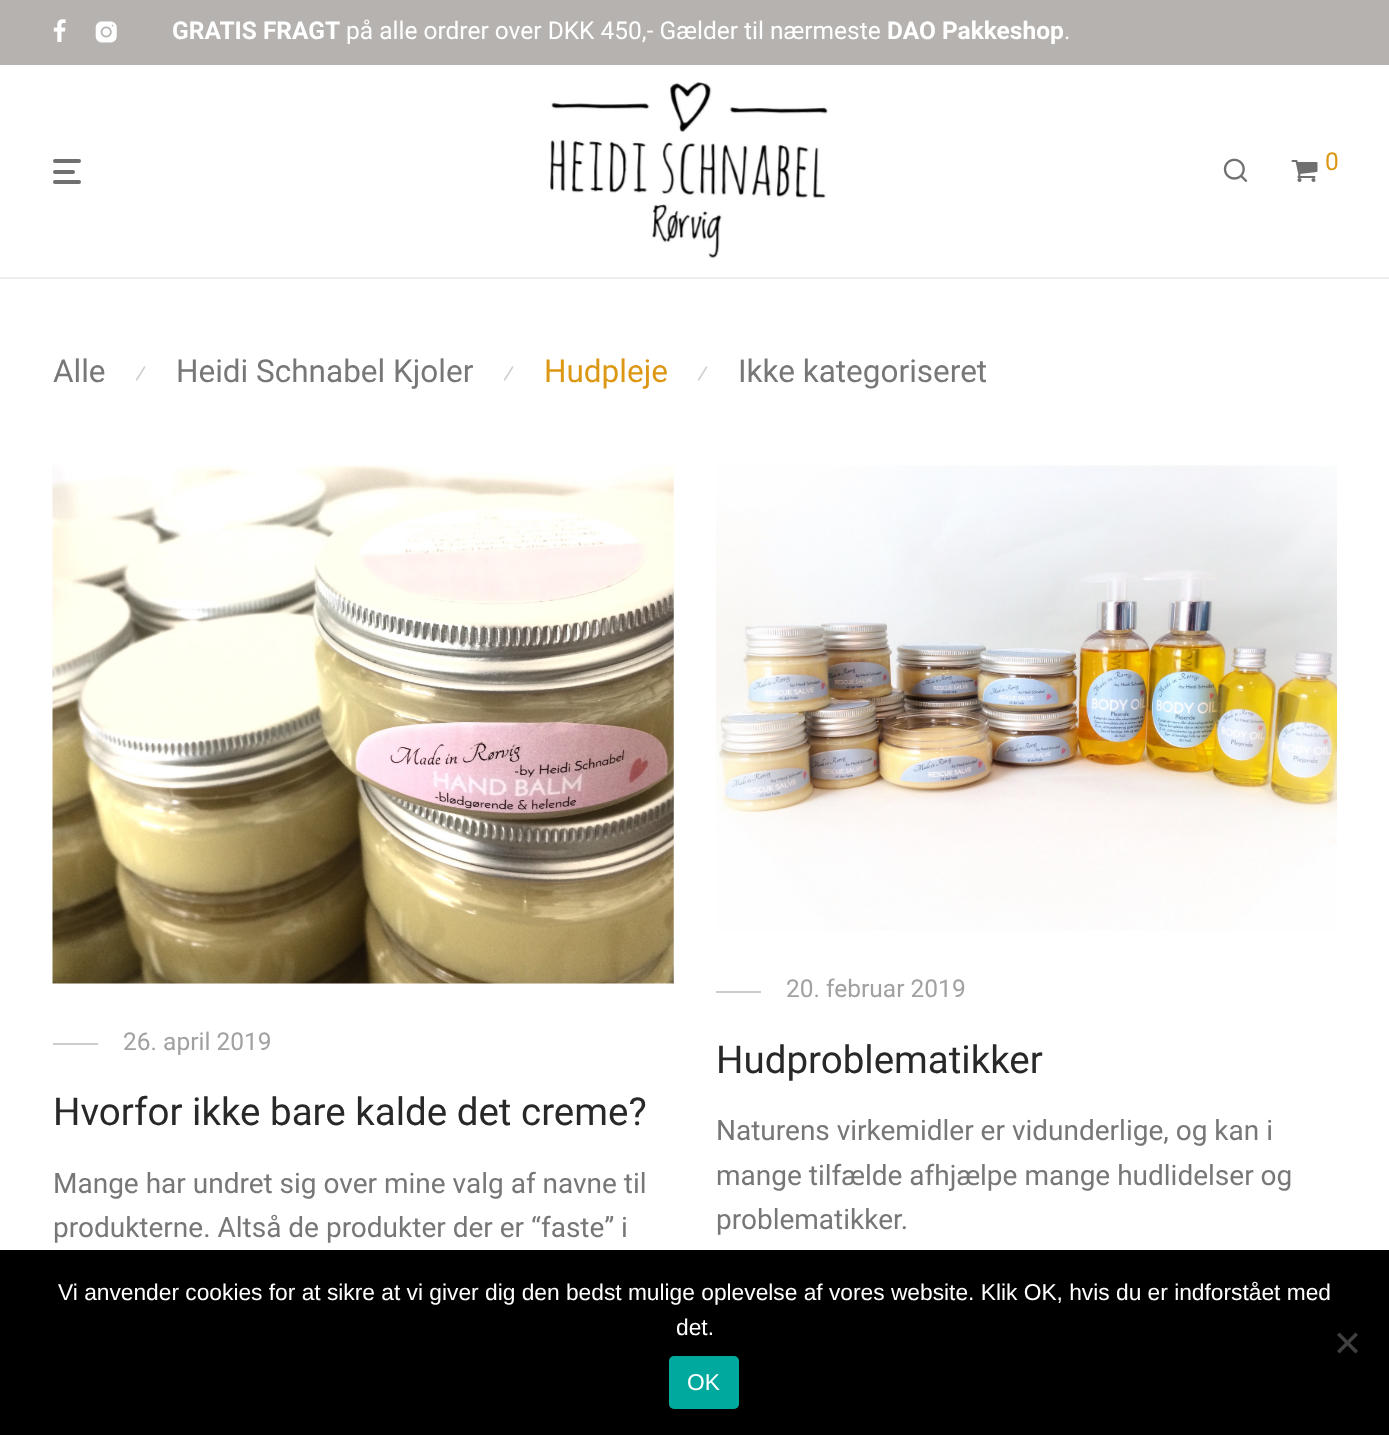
<!DOCTYPE html>
<meta charset="utf-8">
<style>body { margin: 0 } canvas { display: block }</style>
<canvas id="canvas" width="1389" height="1435"></canvas>
<script type="module">
  const canvas = document.getElementById("canvas");
  const ctx = canvas.getContext("2d");
  ctx.miterLimit = 4;
  ctx.fontKerning = "normal";
  async function loadImage(src) {
    const img = new Image();
    img.src = src;
    await img.decode();
    return img;
  }

  ctx.fillStyle = "#ffffff";
  ctx.fillRect(0, 0, 1389, 1435);
  ctx.fillStyle = "#b5b2af";
  ctx.fillRect(0, 0, 1389, 65);
  ctx.drawImage(await loadImage("img1.png"), 53, 19, 13, 23);
  ctx.drawImage(await loadImage("img2.png"), 95, 21, 22, 22);
  ctx.font = "bold 24.5px Roboto";
  ctx.fillStyle = "#ffffff";
  ctx.fillText("GRATIS FRAGT", 172, 39);
  ctx.font = "24.5px Roboto";
  ctx.fillText("på alle ordrer over DKK 450,- Gælder til nærmeste", 346, 39);
  ctx.font = "bold 24.5px Roboto";
  ctx.fillText("DAO Pakkeshop", 887, 39);
  ctx.font = "24.5px Roboto";
  ctx.fillText(".", 1064, 39);
  ctx.fillStyle = "#eeeeee";
  ctx.fillRect(0, 277, 1389, 2);
  ctx.fillStyle = "#707070";
  ctx.beginPath();
  ctx.roundRect(53, 159, 28, 4, 2);
  ctx.fill();
  ctx.beginPath();
  ctx.roundRect(53, 170, 22, 4, 2);
  ctx.fill();
  ctx.beginPath();
  ctx.roundRect(53, 180, 28, 4, 2);
  ctx.fill();
  ctx.drawImage(await loadImage("img3.png"), 550, 82, 279, 177);
  ctx.drawImage(await loadImage("img4.png"), 1223, 158, 25, 24);
  ctx.drawImage(await loadImage("img5.png"), 1291, 160, 27, 22);
  ctx.fillStyle = "#dc9814";
  ctx.fillText("0", 1325, 170);
  ctx.font = "31.5px Roboto";
  ctx.fillStyle = "#777777";
  ctx.fillText("Alle", 53, 382);
  ctx.font = "24.5px Roboto";
  ctx.fillStyle = "#cccccc";
  ctx.fillText("⁄", 135, 382);
  ctx.font = "31.5px Roboto";
  ctx.fillStyle = "#777777";
  ctx.fillText("Heidi Schnabel Kjoler", 176, 382);
  ctx.font = "24.5px Roboto";
  ctx.fillStyle = "#cccccc";
  ctx.fillText("⁄", 503, 382);
  ctx.font = "31.5px Roboto";
  ctx.fillStyle = "#dc9814";
  ctx.fillText("Hudpleje", 544, 382);
  ctx.font = "24.5px Roboto";
  ctx.fillStyle = "#cccccc";
  ctx.fillText("⁄", 697, 382);
  ctx.font = "31.5px Roboto";
  ctx.fillStyle = "#777777";
  ctx.fillText("Ikke kategoriseret", 738, 382);
  ctx.drawImage(await loadImage("img6.png"), 52, 465, 622, 519);
  ctx.fillStyle = "#cccccc";
  ctx.fillRect(53, 1043, 45, 2);
  ctx.font = "24.5px Roboto";
  ctx.fillStyle = "#a1a1a1";
  ctx.fillText("26. april 2019", 123, 1050);
  ctx.font = "38.5px Roboto";
  ctx.fillStyle = "#282828";
  ctx.fillText("Hvorfor ikke bare kalde det creme?", 53, 1125);
  ctx.font = "28px Roboto";
  ctx.fillStyle = "#777777";
  ctx.fillText("Mange har undret sig over mine valg af navne til", 53, 1193);
  ctx.fillText("produkterne. Altså de produkter der er “faste” i", 53, 1237);
  ctx.drawImage(await loadImage("img7.png"), 716, 465, 621, 466);
  ctx.fillStyle = "#cccccc";
  ctx.fillRect(716, 991, 45, 2);
  ctx.font = "24.5px Roboto";
  ctx.fillStyle = "#a1a1a1";
  ctx.fillText("20. februar 2019", 786, 997);
  ctx.font = "38.5px Roboto";
  ctx.fillStyle = "#282828";
  ctx.fillText("Hudproblematikker", 716, 1073);
  ctx.font = "28px Roboto";
  ctx.fillStyle = "#777777";
  ctx.fillText("Naturens virkemidler er vidunderlige, og kan i", 716, 1140);
  ctx.fillText("mange tilfælde afhjælpe mange hudlidelser og", 716, 1185);
  ctx.fillText("problematikker.", 716, 1229);
  ctx.fillStyle = "#000000";
  ctx.fillRect(0, 1250, 1389, 185);
  ctx.font = "22.75px Liberation Sans";
  ctx.fillStyle = "#ffffff";
  ctx.fillText("Vi anvender cookies for at sikre at vi giver dig den bedst mulige oplevelse af vores website. Klik OK, hvis du er indforstået med", 58, 1300);
  ctx.fillText("det.", 676, 1335);
  ctx.fillStyle = "#404040";
  ctx.beginPath();
  ctx.moveTo(1355.5, 1332.5);
  ctx.lineTo(1358, 1335);
  ctx.lineTo(1339.5, 1353.5);
  ctx.lineTo(1337, 1351);
  ctx.closePath();
  ctx.fill();
  ctx.beginPath();
  ctx.moveTo(1337, 1335);
  ctx.lineTo(1339.5, 1332.5);
  ctx.lineTo(1358, 1351);
  ctx.lineTo(1355.5, 1353.5);
  ctx.closePath();
  ctx.fill();
  ctx.fillStyle = "#00a99d";
  ctx.beginPath();
  ctx.roundRect(669, 1356, 70, 53, 5);
  ctx.fill();
  ctx.fillStyle = "#ffffff";
  ctx.fillText("OK", 687, 1390);
</script>
